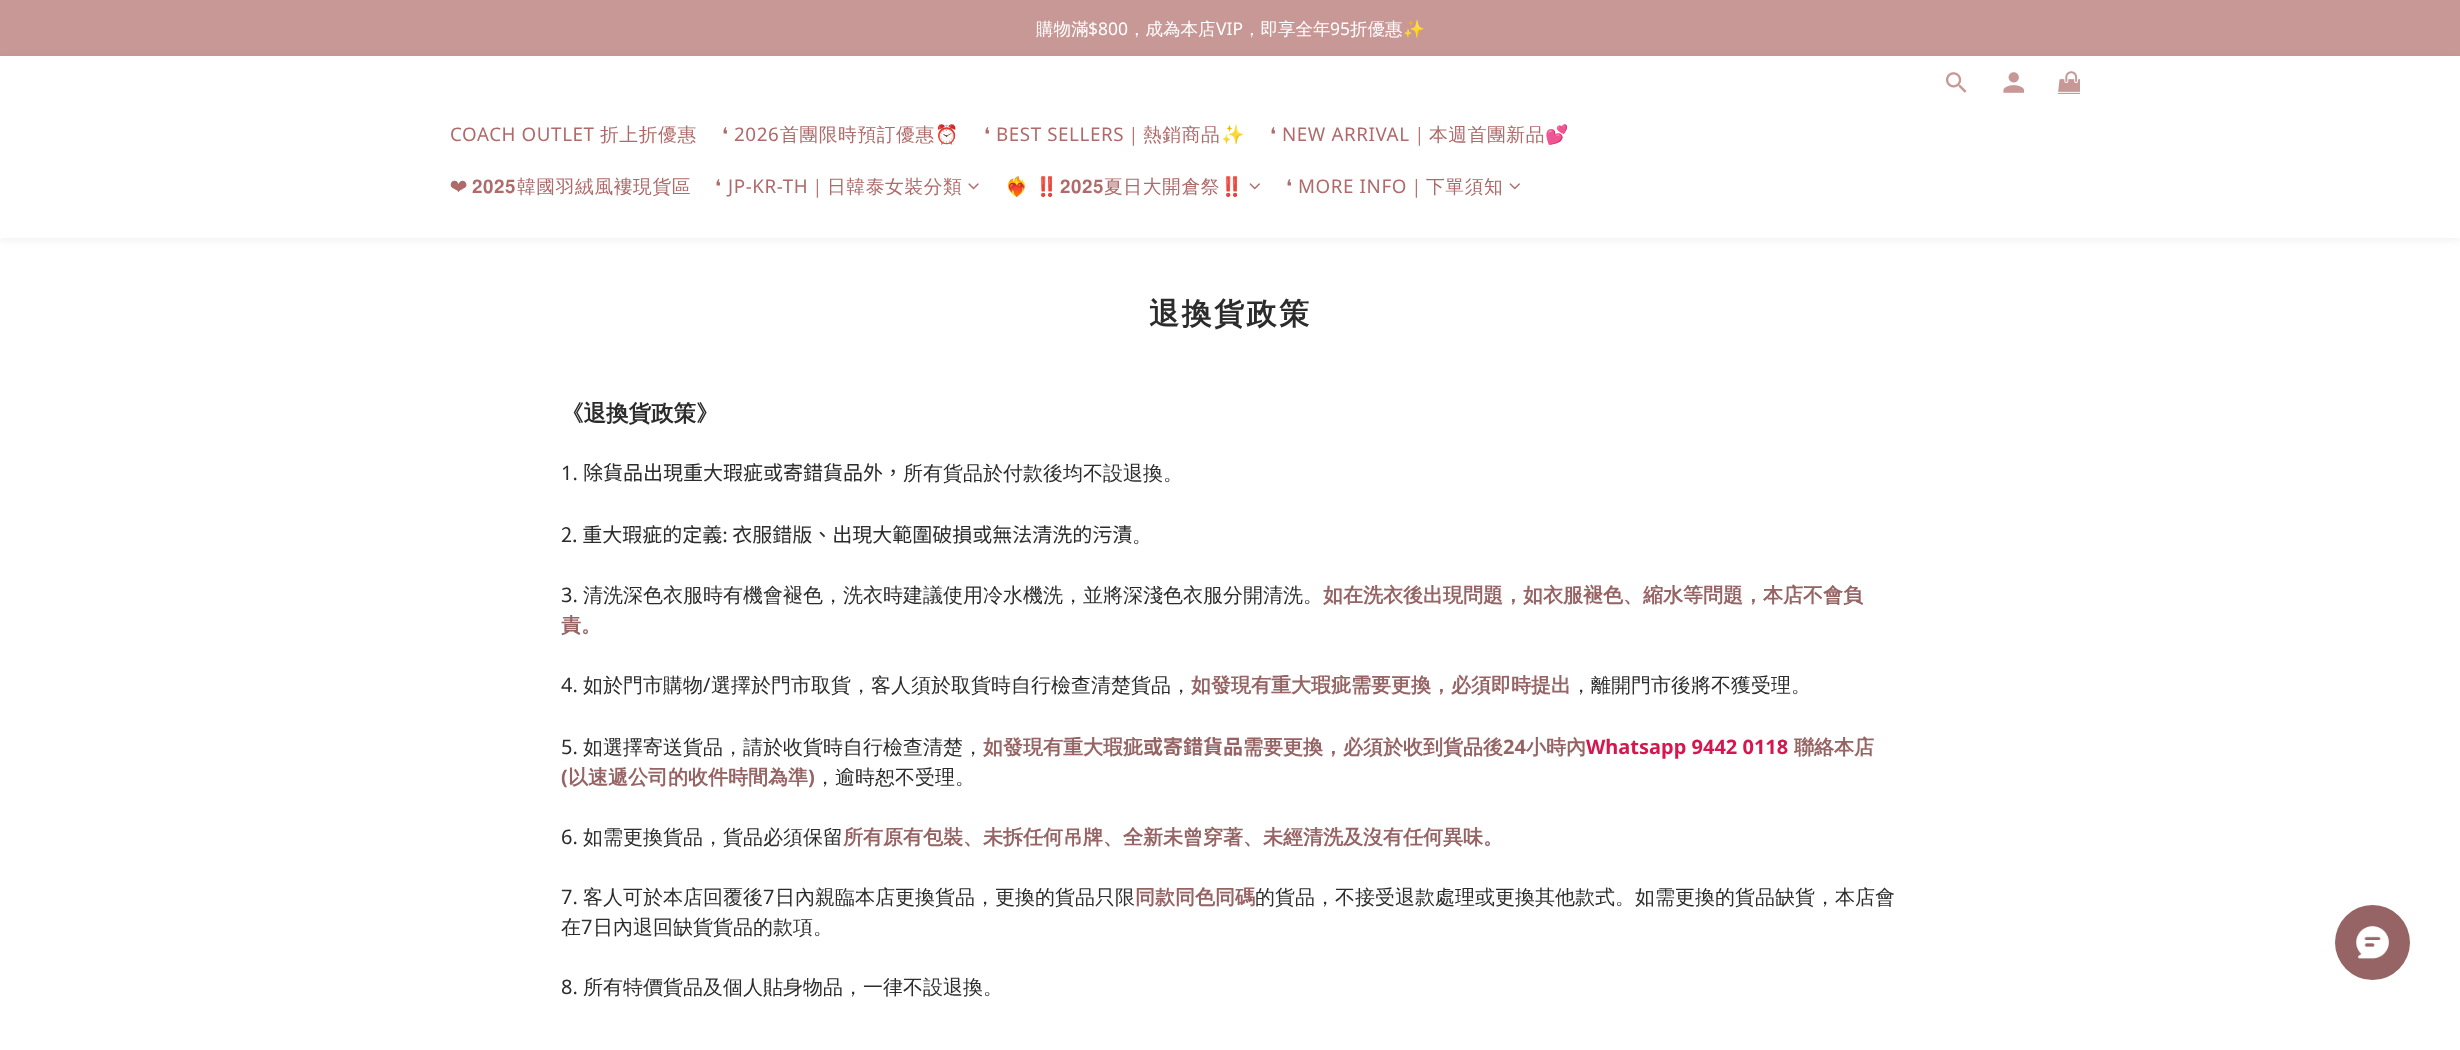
<!DOCTYPE html>
<meta charset="utf-8">
<style>body { margin: 0 } canvas { display: block }</style>
<canvas id="canvas" width="2460" height="1050"></canvas>
<script type="module">
  const canvas = document.getElementById("canvas");
  const ctx = canvas.getContext("2d");
  ctx.miterLimit = 4;
  ctx.fontKerning = "normal";
  async function loadImage(src) {
    const img = new Image();
    img.src = src;
    await img.decode();
    return img;
  }

  ctx.fillStyle = "#ffffff";
  ctx.fillRect(0, 0, 2460, 1050);
  ctx.fillStyle = "#c89896";
  ctx.fillRect(0, 0, 2460, 56);
  ctx.font = "500 17.5px WenQuanYi Zen Hei";
  ctx.fillStyle = "#ffffff";
  ctx.fillText("購物滿", 1036, 35);
  ctx.font = "17.5px Noto Sans";
  ctx.fillText("$800", 1088, 35);
  ctx.font = "500 17.5px WenQuanYi Zen Hei";
  ctx.fillText("，成為本店", 1128, 35);
  ctx.font = "17.5px Noto Sans";
  ctx.fillText("VIP", 1216, 35);
  ctx.font = "500 17.5px WenQuanYi Zen Hei";
  ctx.fillText("，即享全年", 1243, 35);
  ctx.font = "17.5px Noto Sans";
  ctx.fillText("95", 1330, 35);
  ctx.font = "500 17.5px WenQuanYi Zen Hei";
  ctx.fillText("折優惠", 1350, 35);
  ctx.font = "17.5px Noto Color Emoji";
  ctx.fillText("✨", 1403, 35);
  ctx.fillStyle = "rgba(0, 0, 0, 0.06)";
  ctx.filter = "blur(4px)";
  ctx.beginPath();
  ctx.rect(0, 59, 2460, 181);
  ctx.fill();
  ctx.filter = "none";
  ctx.fillStyle = "#ffffff";
  ctx.fillRect(0, 56, 2460, 182);
  ctx.drawImage(await loadImage("img1.png"), 1946, 72, 21, 21);
  ctx.drawImage(await loadImage("img2.png"), 2003, 72, 22, 21);
  ctx.drawImage(await loadImage("img3.png"), 2058, 71, 22, 23);
  ctx.letterSpacing = "0.6px";
  ctx.font = "18.75px Noto Sans";
  ctx.fillStyle = "#af6a6a";
  ctx.fillText("COACH OUTLET", 450, 141);
  ctx.font = "500 18.75px WenQuanYi Zen Hei";
  ctx.fillText("折上折優惠", 600, 141);
  ctx.font = "18.75px DejaVu Sans";
  ctx.fillText("❛", 722, 141);
  ctx.font = "18.75px Noto Sans";
  ctx.fillText("2026", 734, 141);
  ctx.font = "500 18.75px WenQuanYi Zen Hei";
  ctx.fillText("首團限時預訂優惠", 780, 141);
  ctx.font = "18.75px Noto Color Emoji";
  ctx.fillText("⏰", 935, 141);
  ctx.font = "18.75px DejaVu Sans";
  ctx.fillText("❛", 984, 141);
  ctx.font = "18.75px Noto Sans";
  ctx.fillText("BEST SELLERS", 996, 141);
  ctx.font = "500 18.75px WenQuanYi Zen Hei";
  ctx.fillText("｜熱銷商品", 1124, 141);
  ctx.font = "18.75px Noto Color Emoji";
  ctx.fillText("✨", 1221, 141);
  ctx.font = "18.75px DejaVu Sans";
  ctx.fillText("❛", 1270, 141);
  ctx.font = "18.75px Noto Sans";
  ctx.fillText("NEW ARRIVAL", 1282, 141);
  ctx.font = "500 18.75px WenQuanYi Zen Hei";
  ctx.fillText("｜本週首團新品", 1410, 141);
  ctx.font = "18.75px Noto Color Emoji";
  ctx.fillText("💕", 1545, 141);
  ctx.wordSpacing = "-1px";
  ctx.font = "18.75px FreeSans";
  ctx.fillText("❤︎ 𝟐𝟎𝟐𝟓", 450, 193);
  ctx.wordSpacing = "0px";
  ctx.font = "500 18.75px WenQuanYi Zen Hei";
  ctx.fillText("韓國羽絨風褸現貨區", 517, 193);
  ctx.font = "18.75px DejaVu Sans";
  ctx.fillText("❛", 715, 193);
  ctx.font = "18.75px Noto Sans";
  ctx.fillText("JP-KR-TH", 728, 193);
  ctx.font = "500 18.75px WenQuanYi Zen Hei";
  ctx.fillText("｜日韓泰女裝分類", 808, 193);
  ctx.drawImage(await loadImage("img4.png"), 968, 183, 11, 7);
  ctx.font = "18.75px Noto Color Emoji";
  ctx.fillText("❤️‍🔥", 1005, 193);
  ctx.fillText("‼️", 1035, 193);
  ctx.font = "18.75px FreeSans";
  ctx.fillText("𝟐𝟎𝟐𝟓", 1060, 193);
  ctx.font = "500 18.75px WenQuanYi Zen Hei";
  ctx.fillText("夏日大開倉祭", 1104, 193);
  ctx.font = "18.75px Noto Color Emoji";
  ctx.fillText("‼️", 1220, 193);
  ctx.drawImage(await loadImage("img5.png"), 1249, 183, 11, 7);
  ctx.font = "18.75px DejaVu Sans";
  ctx.fillText("❛", 1286, 193);
  ctx.font = "18.75px Noto Sans";
  ctx.fillText("MORE INFO", 1298, 193);
  ctx.font = "500 18.75px WenQuanYi Zen Hei";
  ctx.fillText("｜下單須知", 1407, 193);
  ctx.drawImage(await loadImage("img5.png"), 1509, 183, 11, 7);
  ctx.letterSpacing = "2.5px";
  ctx.font = "bold 30px WenQuanYi Zen Hei";
  ctx.fillStyle = "#2c2c2c";
  ctx.fillText("退換貨政策", 1149, 324);
  ctx.letterSpacing = "0px";
  ctx.font = "bold 22.5px WenQuanYi Zen Hei";
  ctx.fillText("《退換貨政策》", 561, 421);
  ctx.font = "20px Noto Sans";
  ctx.fillText("1.", 561, 480);
  ctx.font = "20px Noto Sans TC";
  ctx.fillText("除貨品出現重大瑕疵或寄錯貨品外，", 583, 480);
  ctx.font = "500 20px WenQuanYi Zen Hei";
  ctx.fillText("所有貨品於付款後均不設退換。", 903, 480);
  ctx.font = "20px Noto Sans TC";
  ctx.fillText("2. 重大瑕疵的定義: 衣服錯版、出現大範圍破損或無法清洗的污漬", 561, 542);
  ctx.font = "500 20px WenQuanYi Zen Hei";
  ctx.fillText("。", 1132, 542);
  ctx.font = "20px Noto Sans";
  ctx.fillText("3.", 561, 602);
  ctx.font = "500 20px WenQuanYi Zen Hei";
  ctx.fillText("清洗深色衣服時有機會褪色，洗衣時建議使用冷水機洗，並將深淺色衣服分開清洗。", 583, 602);
  ctx.font = "bold 20px WenQuanYi Zen Hei";
  ctx.fillStyle = "#966464";
  ctx.fillText("如在洗衣後出現問題，如衣服褪色、縮水等問題，本店不會負", 1323, 602);
  ctx.fillText("責。", 561, 632);
  ctx.font = "20px Noto Sans";
  ctx.fillStyle = "#2c2c2c";
  ctx.fillText("4.", 561, 692);
  ctx.font = "500 20px WenQuanYi Zen Hei";
  ctx.fillText("如於門市購物", 583, 692);
  ctx.font = "20px Noto Sans";
  ctx.fillText("/", 703, 692);
  ctx.font = "500 20px WenQuanYi Zen Hei";
  ctx.fillText("選擇於門市取貨，客人須於取貨時自行檢查清楚貨品，", 711, 692);
  ctx.font = "bold 20px WenQuanYi Zen Hei";
  ctx.fillStyle = "#966464";
  ctx.fillText("如發現有重大瑕疵需要更換，必須即時提出", 1191, 692);
  ctx.font = "500 20px WenQuanYi Zen Hei";
  ctx.fillStyle = "#2c2c2c";
  ctx.fillText("，離開門市後將不獲受理。", 1571, 692);
  ctx.font = "20px Noto Sans";
  ctx.fillText("5.", 561, 754);
  ctx.font = "500 20px WenQuanYi Zen Hei";
  ctx.fillText("如選擇寄送貨品，請於收貨時自行檢查清楚，", 583, 754);
  ctx.font = "bold 20px WenQuanYi Zen Hei";
  ctx.fillStyle = "#966464";
  ctx.fillText("如發現有重大瑕疵", 983, 754);
  ctx.font = "bold 20px Noto Sans TC";
  ctx.fillText("或寄錯貨品", 1143, 754);
  ctx.font = "bold 20px WenQuanYi Zen Hei";
  ctx.fillText("需要更換，必須於收到貨品後", 1243, 754);
  ctx.font = "bold 20px Noto Sans";
  ctx.fillText("24", 1503, 754);
  ctx.font = "bold 20px WenQuanYi Zen Hei";
  ctx.fillText("小時內", 1526, 754);
  ctx.font = "bold 20px Noto Sans";
  ctx.fillStyle = "#d5164f";
  ctx.fillText("Whatsapp 9442 0118", 1586, 754);
  ctx.font = "bold 20px WenQuanYi Zen Hei";
  ctx.fillStyle = "#966464";
  ctx.fillText("聯絡本店", 1794, 754);
  ctx.font = "bold 20px Noto Sans";
  ctx.fillText("(", 561, 784);
  ctx.font = "bold 20px WenQuanYi Zen Hei";
  ctx.fillText("以速遞公司的收件時間為準", 568, 784);
  ctx.font = "bold 20px Noto Sans";
  ctx.fillText(")", 808, 784);
  ctx.font = "500 20px WenQuanYi Zen Hei";
  ctx.fillStyle = "#2c2c2c";
  ctx.fillText("，逾時恕不受理。", 815, 784);
  ctx.font = "20px Noto Sans";
  ctx.fillText("6.", 561, 844);
  ctx.font = "500 20px WenQuanYi Zen Hei";
  ctx.fillText("如需更換貨品，貨品必須保留", 583, 844);
  ctx.font = "bold 20px WenQuanYi Zen Hei";
  ctx.fillStyle = "#966464";
  ctx.fillText("所有原有包裝、未拆任何吊牌、全新未曾穿著、未經清洗及沒有任何異味。", 843, 844);
  ctx.font = "20px Noto Sans";
  ctx.fillStyle = "#2c2c2c";
  ctx.fillText("7.", 561, 904);
  ctx.font = "500 20px WenQuanYi Zen Hei";
  ctx.fillText("客人可於本店回覆後", 583, 904);
  ctx.font = "20px Noto Sans";
  ctx.fillText("7", 763, 904);
  ctx.font = "500 20px WenQuanYi Zen Hei";
  ctx.fillText("日內親臨本店更換貨品，更換的貨品只限", 775, 904);
  ctx.font = "bold 20px WenQuanYi Zen Hei";
  ctx.fillStyle = "#966464";
  ctx.fillText("同款同色同碼", 1135, 904);
  ctx.font = "500 20px WenQuanYi Zen Hei";
  ctx.fillStyle = "#2c2c2c";
  ctx.fillText("的貨品，不接受退款處理或更換其他款式。如需更換的貨品缺貨，本店會", 1255, 904);
  ctx.fillText("在", 561, 934);
  ctx.font = "20px Noto Sans";
  ctx.fillText("7", 581, 934);
  ctx.font = "500 20px WenQuanYi Zen Hei";
  ctx.fillText("日內退回缺貨貨品的款項。", 593, 934);
  ctx.font = "20px Noto Sans";
  ctx.fillText("8.", 561, 994);
  ctx.font = "500 20px WenQuanYi Zen Hei";
  ctx.fillText("所有特價貨品及個人貼身物品，一律不設退換。", 583, 994);
  ctx.fillStyle = "#966464";
  ctx.beginPath();
  ctx.arc(2372.5, 942.5, 37.5, 0, Math.PI * 2);
  ctx.fill();
  ctx.drawImage(await loadImage("img6.png"), 2356, 926, 33, 33);
</script>
